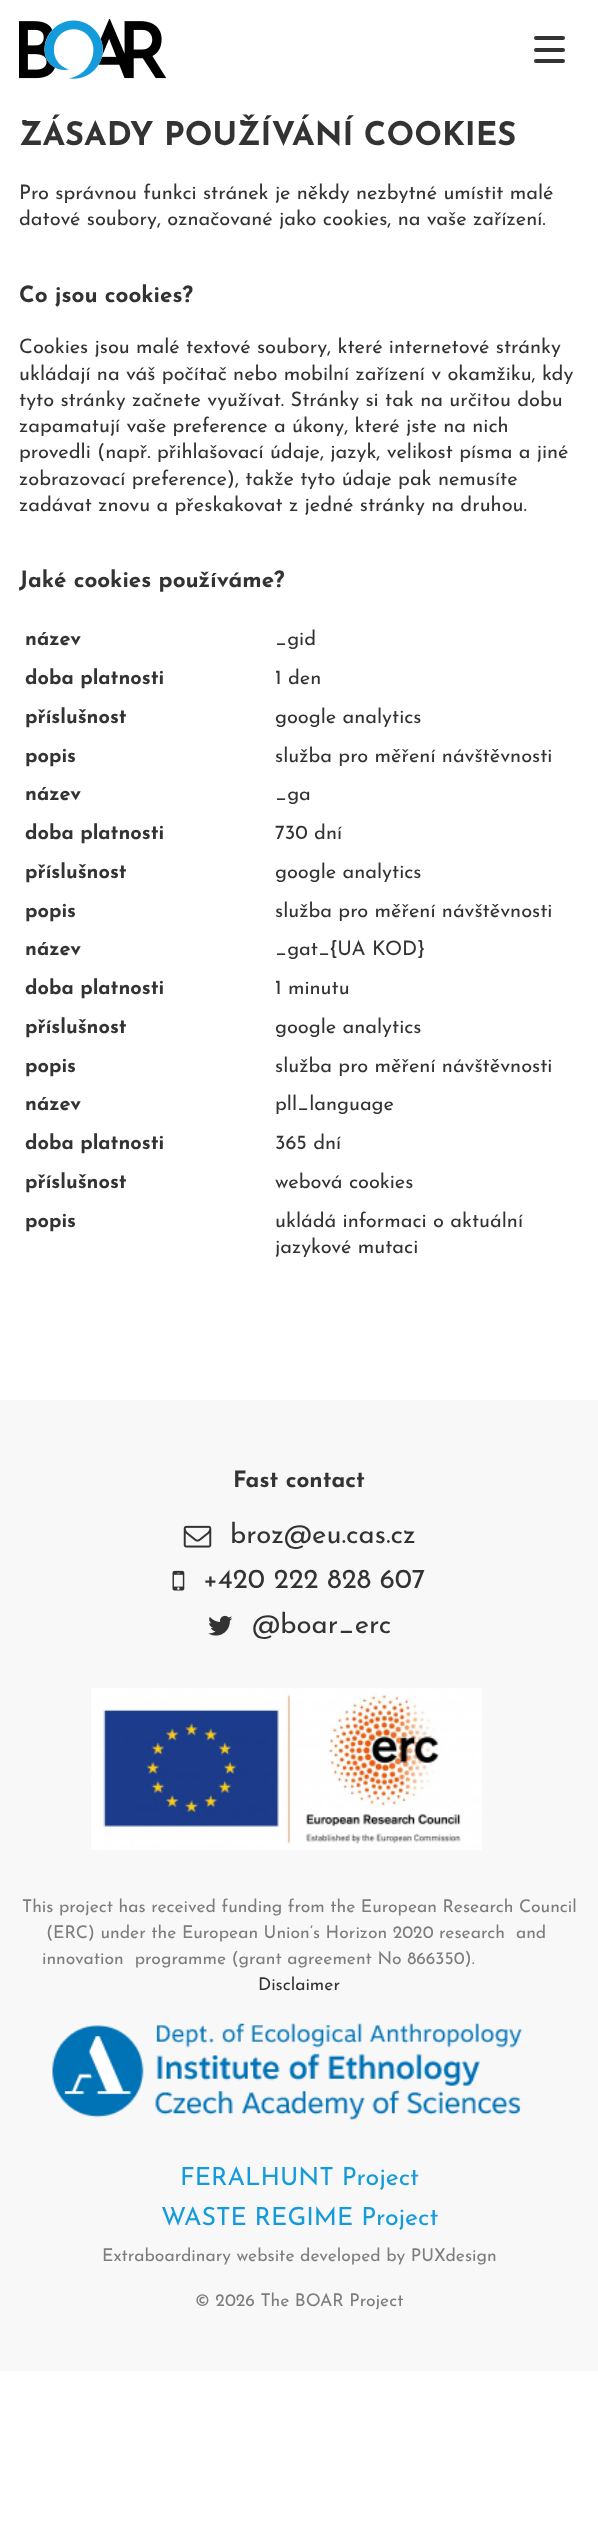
<!DOCTYPE html>
<meta charset="utf-8">
<style>body { margin: 0 } canvas { display: block }</style>
<canvas id="canvas" width="598" height="2545"></canvas>
<script type="module">
  const canvas = document.getElementById("canvas");
  const ctx = canvas.getContext("2d");
  ctx.miterLimit = 4;
  ctx.fontKerning = "normal";
  async function loadImage(src) {
    const img = new Image();
    img.src = src;
    await img.decode();
    return img;
  }

  ctx.fillStyle = "#ffffff";
  ctx.fillRect(0, 0, 598, 2545);
  ctx.drawImage(await loadImage("img1.png"), 19, 19, 147, 60);
  ctx.fillStyle = "#333333";
  ctx.beginPath();
  ctx.roundRect(534, 48, 31, 4, 2);
  ctx.fill();
  ctx.beginPath();
  ctx.roundRect(534, 36, 31, 4, 2);
  ctx.fill();
  ctx.beginPath();
  ctx.roundRect(534, 59, 31, 4, 2);
  ctx.fill();
  ctx.font = "bold 32.5px Josefin Sans";
  ctx.fillText("ZÁSADY POUŽÍVÁNÍ COOKIES", 19, 145);
  ctx.font = "20px Josefin Sans";
  ctx.fillText("Pro správnou funkci stránek je někdy nezbytné umístit malé", 19, 199);
  ctx.fillText("datové soubory, označované jako cookies, na vaše zařízení.", 19, 225);
  ctx.font = "bold 22.5px Josefin Sans";
  ctx.fillText("Co jsou cookies?", 19, 302);
  ctx.font = "20px Josefin Sans";
  ctx.fillText("Cookies jsou malé textové soubory, které internetové stránky", 19, 353);
  ctx.fillText("ukládají na váš počítač nebo mobilní zařízení v okamžiku, kdy", 19, 380);
  ctx.fillText("tyto stránky začnete využívat. Stránky si tak na určitou dobu", 19, 406);
  ctx.fillText("zapamatují vaše preference a úkony, které jste na nich", 19, 432);
  ctx.fillText("provedli (např. přihlašovací údaje, jazyk, velikost písma a jiné", 19, 458);
  ctx.fillText("zobrazovací preference), takže tyto údaje pak nemusíte", 19, 485);
  ctx.fillText("zadávat znovu a přeskakovat z jedné stránky na druhou.", 19, 511);
  ctx.font = "bold 22.5px Josefin Sans";
  ctx.fillText("Jaké cookies používáme?", 19, 587);
  ctx.font = "bold 20px Josefin Sans";
  ctx.fillText("název", 25, 645);
  ctx.font = "20px Josefin Sans";
  ctx.fillText("_gid", 275, 645);
  ctx.font = "bold 20px Josefin Sans";
  ctx.fillText("doba platnosti", 25, 684);
  ctx.font = "20px Josefin Sans";
  ctx.fillText("1 den", 275, 684);
  ctx.font = "bold 20px Josefin Sans";
  ctx.fillText("příslušnost", 25, 723);
  ctx.font = "20px Josefin Sans";
  ctx.fillText("google analytics", 275, 723);
  ctx.font = "bold 20px Josefin Sans";
  ctx.fillText("popis", 25, 762);
  ctx.font = "20px Josefin Sans";
  ctx.fillText("služba pro měření návštěvnosti", 275, 762);
  ctx.font = "bold 20px Josefin Sans";
  ctx.fillText("název", 25, 800);
  ctx.font = "20px Josefin Sans";
  ctx.fillText("_ga", 275, 800);
  ctx.font = "bold 20px Josefin Sans";
  ctx.fillText("doba platnosti", 25, 839);
  ctx.font = "20px Josefin Sans";
  ctx.fillText("730 dní", 275, 839);
  ctx.font = "bold 20px Josefin Sans";
  ctx.fillText("příslušnost", 25, 878);
  ctx.font = "20px Josefin Sans";
  ctx.fillText("google analytics", 275, 878);
  ctx.font = "bold 20px Josefin Sans";
  ctx.fillText("popis", 25, 917);
  ctx.font = "20px Josefin Sans";
  ctx.fillText("služba pro měření návštěvnosti", 275, 917);
  ctx.font = "bold 20px Josefin Sans";
  ctx.fillText("název", 25, 955);
  ctx.font = "20px Josefin Sans";
  ctx.fillText("_gat_{UA KOD}", 275, 955);
  ctx.font = "bold 20px Josefin Sans";
  ctx.fillText("doba platnosti", 25, 994);
  ctx.font = "20px Josefin Sans";
  ctx.fillText("1 minutu", 275, 994);
  ctx.font = "bold 20px Josefin Sans";
  ctx.fillText("příslušnost", 25, 1033);
  ctx.font = "20px Josefin Sans";
  ctx.fillText("google analytics", 275, 1033);
  ctx.font = "bold 20px Josefin Sans";
  ctx.fillText("popis", 25, 1072);
  ctx.font = "20px Josefin Sans";
  ctx.fillText("služba pro měření návštěvnosti", 275, 1072);
  ctx.font = "bold 20px Josefin Sans";
  ctx.fillText("název", 25, 1110);
  ctx.font = "20px Josefin Sans";
  ctx.fillText("pll_language", 275, 1110);
  ctx.font = "bold 20px Josefin Sans";
  ctx.fillText("doba platnosti", 25, 1149);
  ctx.font = "20px Josefin Sans";
  ctx.fillText("365 dní", 275, 1149);
  ctx.font = "bold 20px Josefin Sans";
  ctx.fillText("příslušnost", 25, 1188);
  ctx.font = "20px Josefin Sans";
  ctx.fillText("webová cookies", 275, 1188);
  ctx.font = "bold 20px Josefin Sans";
  ctx.fillText("popis", 25, 1227);
  ctx.font = "20px Josefin Sans";
  ctx.fillText("ukládá informaci o aktuální", 275, 1227);
  ctx.fillText("jazykové mutaci", 275, 1253);
  ctx.fillStyle = "#f8f8f8";
  ctx.fillRect(0, 1400, 598, 971);
  ctx.font = "bold 22.5px Josefin Sans";
  ctx.fillStyle = "#333333";
  ctx.fillText("Fast contact", 233, 1487);
  ctx.drawImage(await loadImage("img2.png"), 183, 1525, 29, 23);
  ctx.font = "27.5px Josefin Sans";
  ctx.fillText("broz@eu.cas.cz", 230, 1543);
  ctx.drawImage(await loadImage("img3.png"), 172, 1570, 13, 21);
  ctx.fillText("+420 222 828 607", 203, 1588);
  ctx.drawImage(await loadImage("img4.png"), 208, 1615, 25, 21);
  ctx.fillText("@boar_erc", 252, 1633);
  ctx.drawImage(await loadImage("img5.png"), 91, 1688, 391, 162);
  ctx.font = "17.5px Josefin Sans";
  ctx.fillStyle = "#7d7d7d";
  ctx.fillText("This project has received funding from the European Research Council", 22, 1912);
  ctx.fillText("(ERC) under the European Union’s Horizon 2020 research  and", 46, 1938);
  ctx.fillText("innovation  programme (grant agreement No 866350).", 42, 1964);
  ctx.fillStyle = "#333333";
  ctx.fillText("Disclaimer", 258, 1990);
  ctx.drawImage(await loadImage("img6.png"), 52, 2023, 470, 97);
  ctx.font = "25px Josefin Sans";
  ctx.fillStyle = "#149bdb";
  ctx.fillText("FERALHUNT Project", 180, 2185);
  ctx.fillText("WASTE REGIME Project", 161, 2225);
  ctx.font = "17.5px Josefin Sans";
  ctx.fillStyle = "#7d7d7d";
  ctx.fillText("Extraboardinary website developed by PUXdesign", 102, 2261);
  ctx.fillText("© 2026 The BOAR Project", 195, 2306);
</script>
